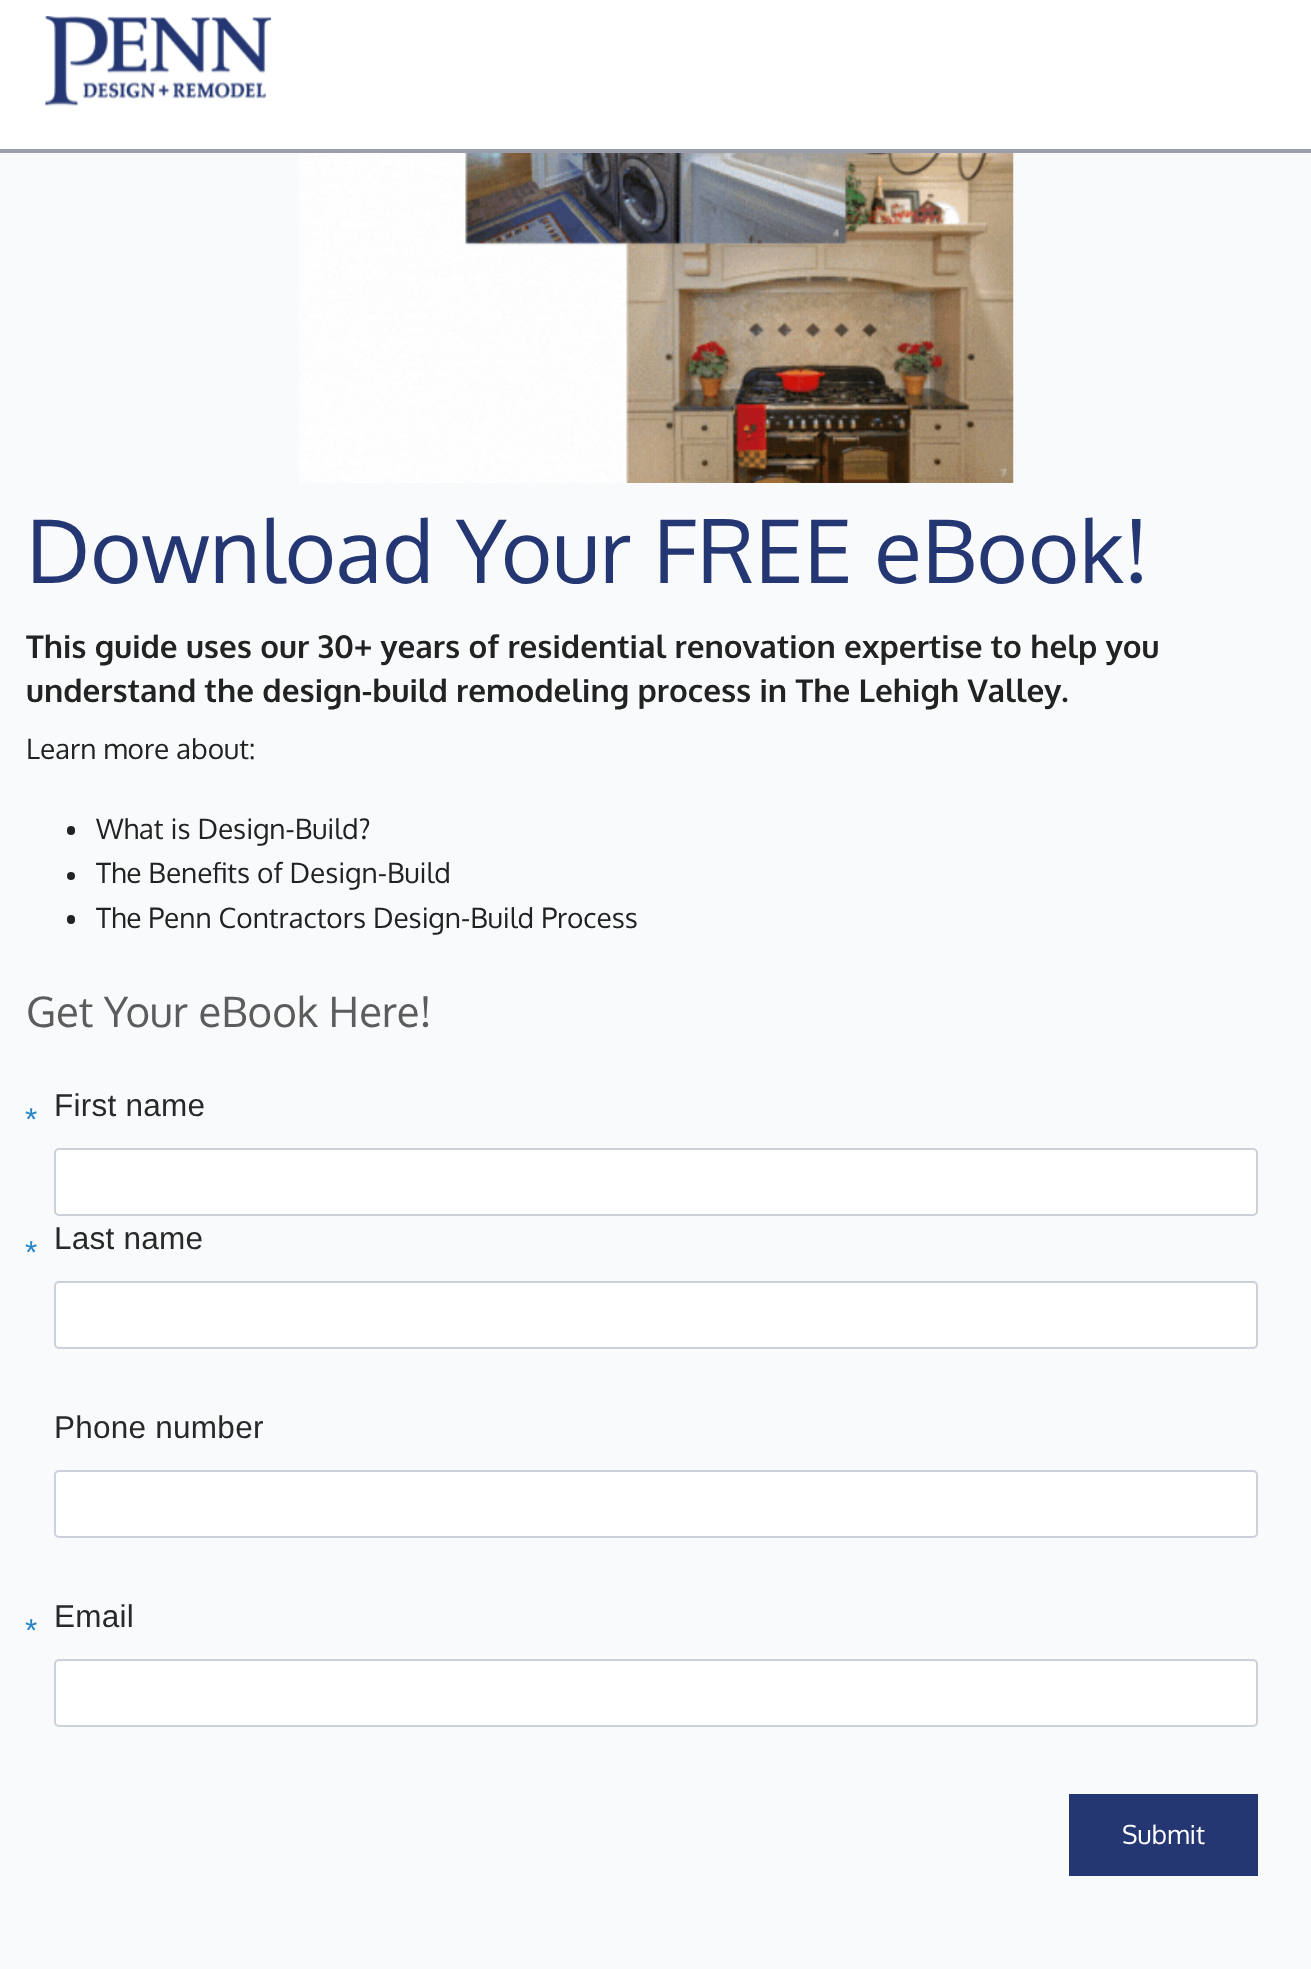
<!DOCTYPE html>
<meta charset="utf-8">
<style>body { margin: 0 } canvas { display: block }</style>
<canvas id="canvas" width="1311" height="1969"></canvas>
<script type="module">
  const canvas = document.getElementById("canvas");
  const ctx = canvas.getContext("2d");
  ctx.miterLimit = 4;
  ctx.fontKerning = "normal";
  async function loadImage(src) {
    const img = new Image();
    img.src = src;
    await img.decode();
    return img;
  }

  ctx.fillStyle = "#f8fafc";
  ctx.fillRect(0, 0, 1311, 1969);
  ctx.fillStyle = "#ffffff";
  ctx.fillRect(0, 0, 1311, 149);
  ctx.fillStyle = "#9b9fab";
  ctx.fillRect(0, 149, 1311, 4);
  ctx.drawImage(await loadImage("img1.png"), 45, 16, 227, 90);
  ctx.drawImage(await loadImage("img2.png"), 299, 153, 715, 330);
  ctx.font = "87.5px Oxygen";
  ctx.fillStyle = "#243773";
  ctx.fillText("Download Your FREE eBook!", 26, 583);
  ctx.font = "bold 31.5px Oxygen";
  ctx.fillStyle = "#222222";
  ctx.fillText("This guide uses our 30+ years of residential renovation expertise to help you", 26, 658);
  ctx.fillText("understand the design-build remodeling process in The Lehigh Valley.", 26, 702);
  ctx.font = "28px Oxygen";
  ctx.fillText("Learn more about:", 26, 759);
  ctx.beginPath();
  ctx.roundRect(67, 826, 8, 9, 4);
  ctx.fill();
  ctx.fillText("What is Design-Build?", 96, 839);
  ctx.beginPath();
  ctx.arc(71, 876, 4, 0, Math.PI * 2);
  ctx.fill();
  ctx.fillText("The Benefits of Design-Build", 96, 883);
  ctx.beginPath();
  ctx.roundRect(67, 915, 8, 9, 4);
  ctx.fill();
  ctx.fillText("The Penn Contractors Design-Build Process", 96, 928);
  ctx.font = "42px Oxygen";
  ctx.fillStyle = "#5c5c5c";
  ctx.fillText("Get Your eBook Here!", 26, 1027);
  ctx.letterSpacing = "0.25px";
  ctx.font = "31.5px Liberation Sans";
  ctx.fillStyle = "#2685c6";
  ctx.fillText("*", 25, 1130);
  ctx.fillStyle = "#282828";
  ctx.fillText("First name", 54, 1116);
  ctx.fillStyle = "#ffffff";
  ctx.beginPath();
  ctx.roundRect(55, 1149, 1202, 66, 4);
  ctx.fill();
  ctx.strokeStyle = "#ccd0d9";
  ctx.lineWidth = 2;
  ctx.stroke();
  ctx.fillStyle = "#2685c6";
  ctx.fillText("*", 25, 1263);
  ctx.fillStyle = "#282828";
  ctx.fillText("Last name", 54, 1249);
  ctx.fillStyle = "#ffffff";
  ctx.beginPath();
  ctx.roundRect(55, 1282, 1202, 66, 4);
  ctx.fill();
  ctx.stroke();
  ctx.fillStyle = "#282828";
  ctx.fillText("Phone number", 54, 1438);
  ctx.fillStyle = "#ffffff";
  ctx.beginPath();
  ctx.roundRect(55, 1471, 1202, 66, 4);
  ctx.fill();
  ctx.stroke();
  ctx.fillStyle = "#2685c6";
  ctx.fillText("*", 25, 1641);
  ctx.fillStyle = "#282828";
  ctx.fillText("Email", 54, 1627);
  ctx.fillStyle = "#ffffff";
  ctx.beginPath();
  ctx.roundRect(55, 1660, 1202, 66, 4);
  ctx.fill();
  ctx.stroke();
  ctx.fillStyle = "#243773";
  ctx.fillRect(1069, 1794, 189, 82);
  ctx.letterSpacing = "0px";
  ctx.font = "26px Oxygen";
  ctx.fillStyle = "#ffffff";
  ctx.fillText("Submit", 1122, 1844);
</script>
